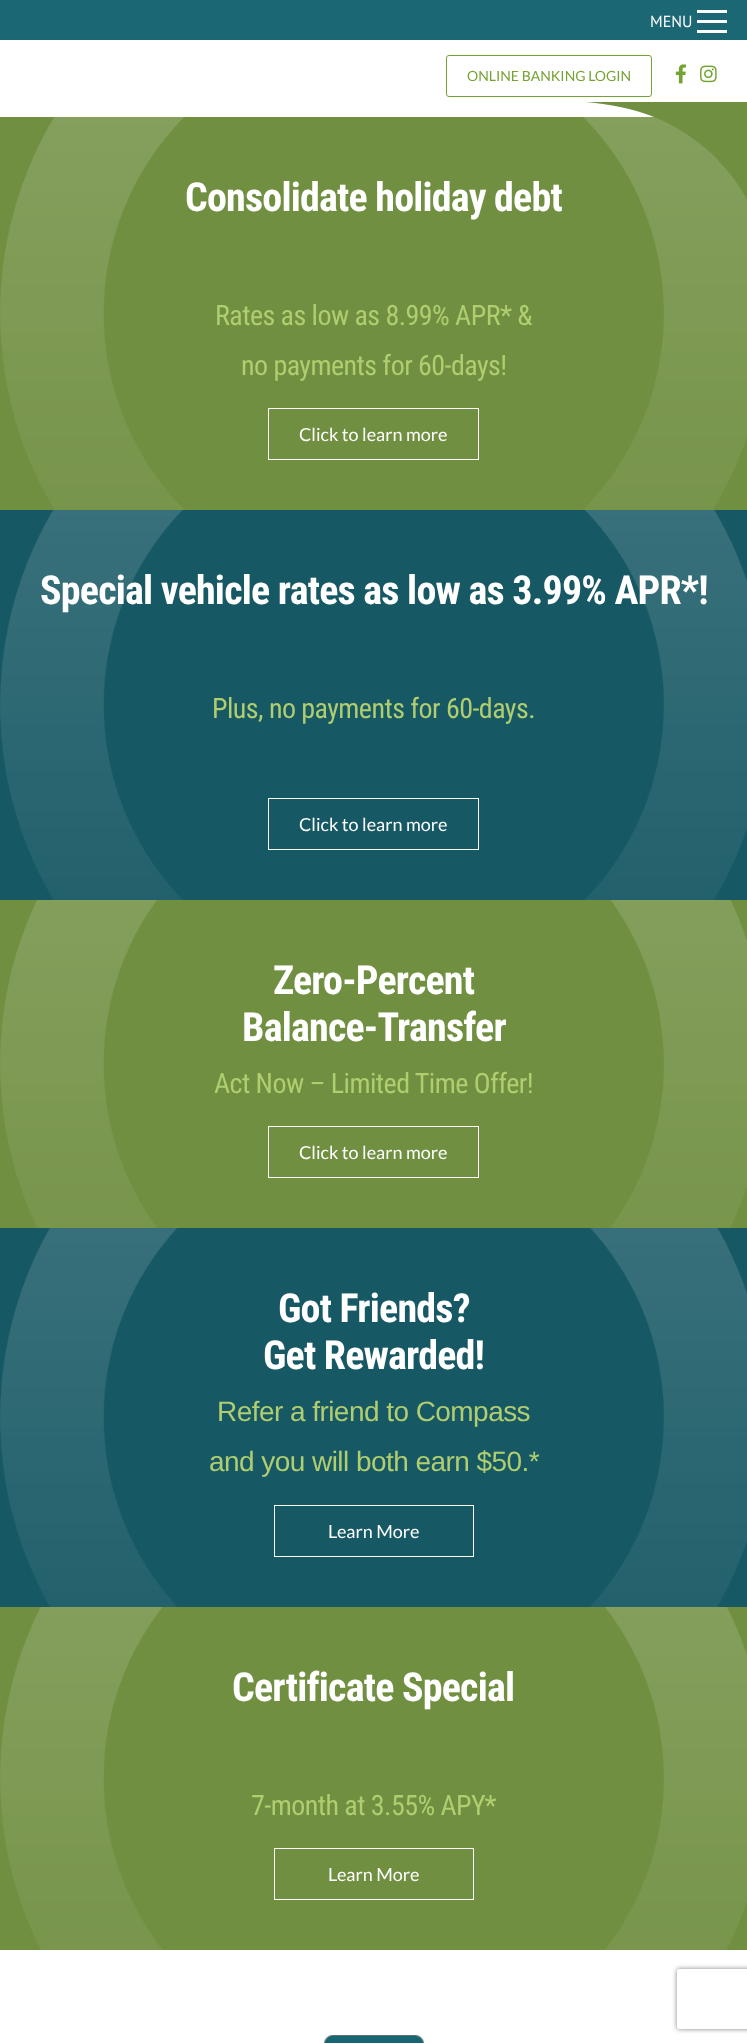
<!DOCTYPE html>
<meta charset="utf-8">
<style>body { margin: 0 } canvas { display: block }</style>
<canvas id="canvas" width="747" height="2043"></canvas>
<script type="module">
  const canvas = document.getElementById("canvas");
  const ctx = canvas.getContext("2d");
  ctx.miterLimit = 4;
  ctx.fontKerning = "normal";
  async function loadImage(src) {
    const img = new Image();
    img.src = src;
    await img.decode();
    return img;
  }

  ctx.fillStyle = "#ffffff";
  ctx.fillRect(0, 0, 747, 2043);
  ctx.fillStyle = "#1b6774";
  ctx.fillRect(0, 0, 747, 40);
  ctx.font = "16px PT Sans";
  ctx.fillStyle = "#ffffff";
  ctx.fillText("MENU", 650, 27);
  ctx.fillRect(697, 20, 30, 3);
  ctx.fillRect(697, 10, 30, 3);
  ctx.fillRect(697, 30, 30, 3);
  ctx.beginPath();
  ctx.roundRect(446.5, 55.5, 205, 41, 2.5);
  ctx.strokeStyle = "#74a333";
  ctx.stroke();
  ctx.font = "14px Lato";
  ctx.fillStyle = "#74a333";
  ctx.fillText("ONLINE BANKING LOGIN", 467, 81);
  ctx.drawImage(await loadImage("img1.png"), 675, 64, 12, 20);
  ctx.drawImage(await loadImage("img2.png"), 700, 65, 17, 18);
  ctx.fillStyle = "#708f41";
  ctx.fillRect(0, 117, 747, 393);
  ctx.drawImage(await loadImage("img4.png"), 0, 117, 747, 393);
  ctx.drawImage(await loadImage("img3.png"), 586, 102, 161, 98);
  ctx.letterSpacing = "-0.8px";
  ctx.font = "bold 40px Roboto Condensed";
  ctx.fillStyle = "#ffffff";
  ctx.fillText("Consolidate holiday debt", 185, 211);
  ctx.letterSpacing = "-0.55px";
  ctx.font = "28px Roboto Condensed";
  ctx.fillStyle = "#b0cd70";
  ctx.fillText("Rates as low as 8.99% APR* &", 215, 325);
  ctx.fillText("no payments for 60-days!", 241, 375);
  ctx.strokeStyle = "#ffffff";
  ctx.strokeRect(268.5, 408.5, 210, 51);
  ctx.letterSpacing = "0px";
  ctx.font = "18px Lato";
  ctx.fillStyle = "#ffffff";
  ctx.fillText("Click to learn more", 299, 441);
  ctx.fillStyle = "#165864";
  ctx.fillRect(0, 510, 747, 390);
  ctx.drawImage(await loadImage("img5.png"), 0, 510, 747, 390);
  ctx.letterSpacing = "-0.8px";
  ctx.font = "bold 40px Roboto Condensed";
  ctx.fillStyle = "#ffffff";
  ctx.fillText("Special vehicle rates as low as 3.99% APR*!", 40, 604);
  ctx.letterSpacing = "-0.55px";
  ctx.font = "28px Roboto Condensed";
  ctx.fillStyle = "#b0cd70";
  ctx.fillText("Plus, no payments for 60-days.", 212, 718);
  ctx.strokeRect(268.5, 798.5, 210, 51);
  ctx.letterSpacing = "0px";
  ctx.font = "18px Lato";
  ctx.fillStyle = "#ffffff";
  ctx.fillText("Click to learn more", 299, 831);
  ctx.fillStyle = "#708f41";
  ctx.fillRect(0, 900, 747, 328);
  ctx.drawImage(await loadImage("img6.png"), 0, 900, 747, 328);
  ctx.letterSpacing = "-0.8px";
  ctx.font = "bold 40px Roboto Condensed";
  ctx.fillStyle = "#ffffff";
  ctx.fillText("Zero-Percent", 273, 994);
  ctx.fillText("Balance-Transfer", 242, 1041);
  ctx.letterSpacing = "-0.55px";
  ctx.font = "28px Roboto Condensed";
  ctx.fillStyle = "#b0cd70";
  ctx.fillText("Act Now – Limited Time Offer!", 214, 1093);
  ctx.strokeRect(268.5, 1126.5, 210, 51);
  ctx.letterSpacing = "0px";
  ctx.font = "18px Lato";
  ctx.fillStyle = "#ffffff";
  ctx.fillText("Click to learn more", 299, 1159);
  ctx.fillStyle = "#165864";
  ctx.fillRect(0, 1228, 747, 379);
  ctx.drawImage(await loadImage("img7.png"), 0, 1228, 747, 379);
  ctx.letterSpacing = "-0.8px";
  ctx.font = "bold 40px Roboto Condensed";
  ctx.fillStyle = "#ffffff";
  ctx.fillText("Got Friends?", 278, 1322);
  ctx.fillText("Get Rewarded!", 263, 1369);
  ctx.letterSpacing = "-0.55px";
  ctx.font = "28px Liberation Sans";
  ctx.fillStyle = "#b0cd70";
  ctx.fillText("Refer a friend to Compass", 217, 1421);
  ctx.fillText("and you will both earn $50.*", 209, 1471);
  ctx.strokeRect(274.5, 1505.5, 199, 51);
  ctx.letterSpacing = "0px";
  ctx.font = "18px Lato";
  ctx.fillStyle = "#ffffff";
  ctx.fillText("Learn More", 328, 1538);
  ctx.fillStyle = "#708f41";
  ctx.fillRect(0, 1607, 747, 343);
  ctx.drawImage(await loadImage("img8.png"), 0, 1607, 747, 343);
  ctx.letterSpacing = "-0.8px";
  ctx.font = "bold 40px Roboto Condensed";
  ctx.fillStyle = "#ffffff";
  ctx.fillText("Certificate Special", 232, 1701);
  ctx.letterSpacing = "-0.55px";
  ctx.font = "28px Roboto Condensed";
  ctx.fillStyle = "#b0cd70";
  ctx.fillText("7-month at 3.55% APY*", 251, 1815);
  ctx.strokeRect(274.5, 1848.5, 199, 51);
  ctx.letterSpacing = "0px";
  ctx.font = "18px Lato";
  ctx.fillStyle = "#ffffff";
  ctx.fillText("Learn More", 328, 1881);
  ctx.drawImage(await loadImage("img9.png"), 324, 2035, 100, 8);
  ctx.save();
  ctx.beginPath();
  ctx.moveTo(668, 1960);
  ctx.lineTo(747, 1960);
  ctx.lineTo(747, 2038);
  ctx.lineTo(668, 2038);
  ctx.closePath();
  ctx.moveTo(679, 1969);
  ctx.lineTo(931, 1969);
  ctx.bezierCurveTo(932, 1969, 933, 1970, 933, 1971);
  ctx.lineTo(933, 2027);
  ctx.bezierCurveTo(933, 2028, 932, 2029, 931, 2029);
  ctx.lineTo(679, 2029);
  ctx.bezierCurveTo(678, 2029, 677, 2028, 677, 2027);
  ctx.lineTo(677, 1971);
  ctx.bezierCurveTo(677, 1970, 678, 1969, 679, 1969);
  ctx.closePath();
  ctx.clip("evenodd");
  ctx.fillStyle = "#808080";
  ctx.filter = "blur(2.5px)";
  ctx.beginPath();
  ctx.roundRect(677, 1969, 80, 60, 2);
  ctx.fill();
  ctx.filter = "none";
  ctx.restore();
</script>
